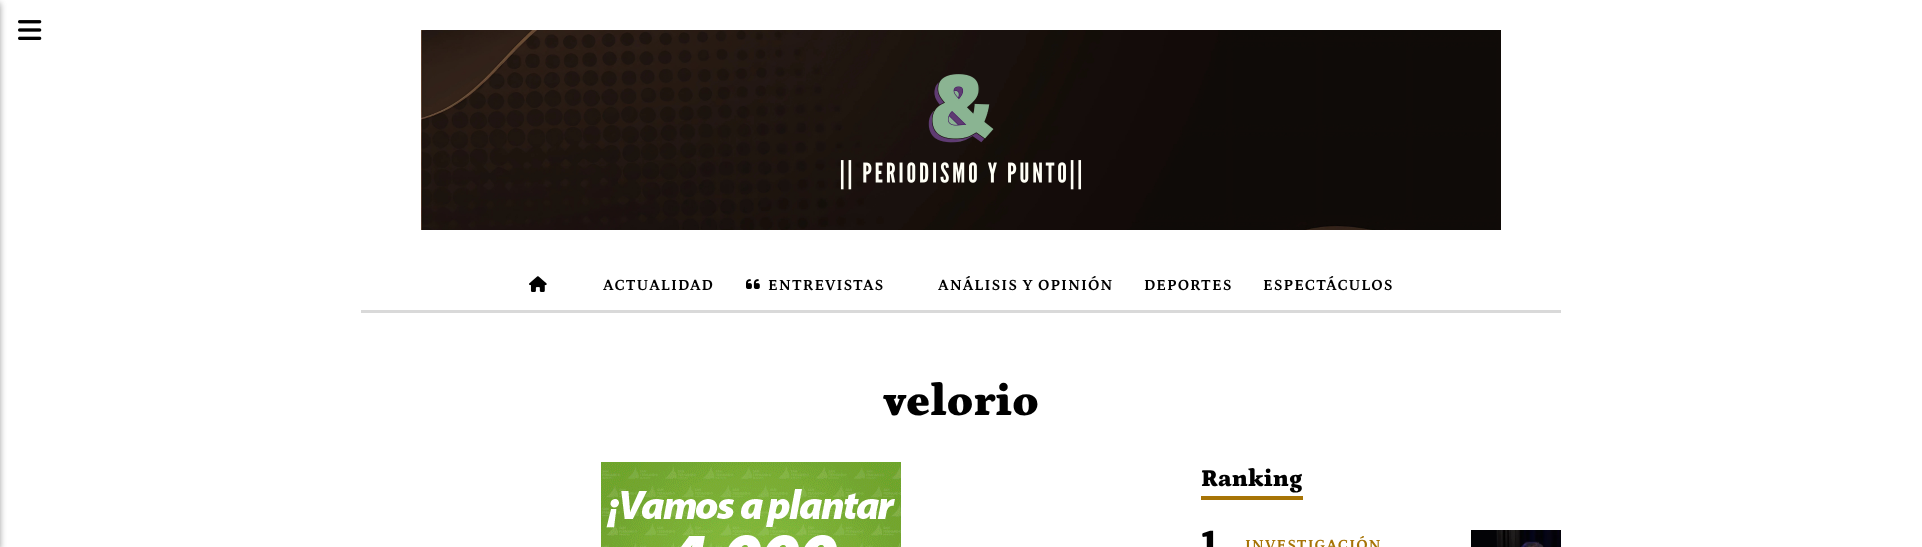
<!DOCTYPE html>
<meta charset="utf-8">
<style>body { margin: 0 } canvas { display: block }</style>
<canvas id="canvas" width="1922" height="547"></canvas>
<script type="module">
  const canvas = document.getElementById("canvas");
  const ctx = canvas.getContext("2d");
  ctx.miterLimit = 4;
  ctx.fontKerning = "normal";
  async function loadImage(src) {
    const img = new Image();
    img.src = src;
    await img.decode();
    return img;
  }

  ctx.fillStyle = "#ffffff";
  ctx.fillRect(0, 0, 1922, 547);
  ctx.fillStyle = "rgba(0, 0, 0, 0.23)";
  ctx.filter = "blur(3px)";
  ctx.beginPath();
  ctx.rect(-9, 3, 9, 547);
  ctx.fill();
  ctx.filter = "none";
  ctx.fillStyle = "rgba(0, 0, 0, 0.16)";
  ctx.filter = "blur(3px)";
  ctx.beginPath();
  ctx.rect(-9, 3, 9, 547);
  ctx.fill();
  ctx.filter = "none";
  ctx.drawImage(await loadImage("img1.png"), 18, 20, 24, 20);
  ctx.drawImage(await loadImage("img2.png"), 421, 30, 1080, 200);
  ctx.fillStyle = "#d9d9d9";
  ctx.fillRect(361, 310, 1200, 3);
  ctx.drawImage(await loadImage("img3.png"), 529, 276, 18, 16);
  ctx.letterSpacing = "1px";
  ctx.font = "bold 15.75px Petrona";
  ctx.fillStyle = "#000000";
  ctx.fillText("ACTUALIDAD", 603, 290);
  ctx.drawImage(await loadImage("img4.png"), 746, 279, 14, 10);
  ctx.fillText("ENTREVISTAS", 768, 290);
  ctx.fillText("ANÁLISIS Y OPINIÓN", 938, 290);
  ctx.fillText("DEPORTES", 1144, 290);
  ctx.fillText("ESPECTÁCULOS", 1263, 290);
  ctx.letterSpacing = "0px";
  ctx.font = "900 45px Petrona";
  ctx.fillText("velorio", 883, 415);
  ctx.drawImage(await loadImage("img5.png"), 601, 462, 300, 85);
  ctx.fillStyle = "#a77406";
  ctx.fillRect(1201, 496, 102, 4);
  ctx.font = "900 24.5px Petrona";
  ctx.fillStyle = "#000000";
  ctx.fillText("Ranking", 1201, 486);
  ctx.font = "900 34px Petrona";
  ctx.fillText("1", 1201, 553);
  ctx.letterSpacing = "1px";
  ctx.font = "bold 15.75px Petrona";
  ctx.fillStyle = "#a77406";
  ctx.fillText("INVESTIGACIÓN", 1245, 550);
  ctx.drawImage(await loadImage("img6.png"), 1471, 530, 90, 17);
</script>
